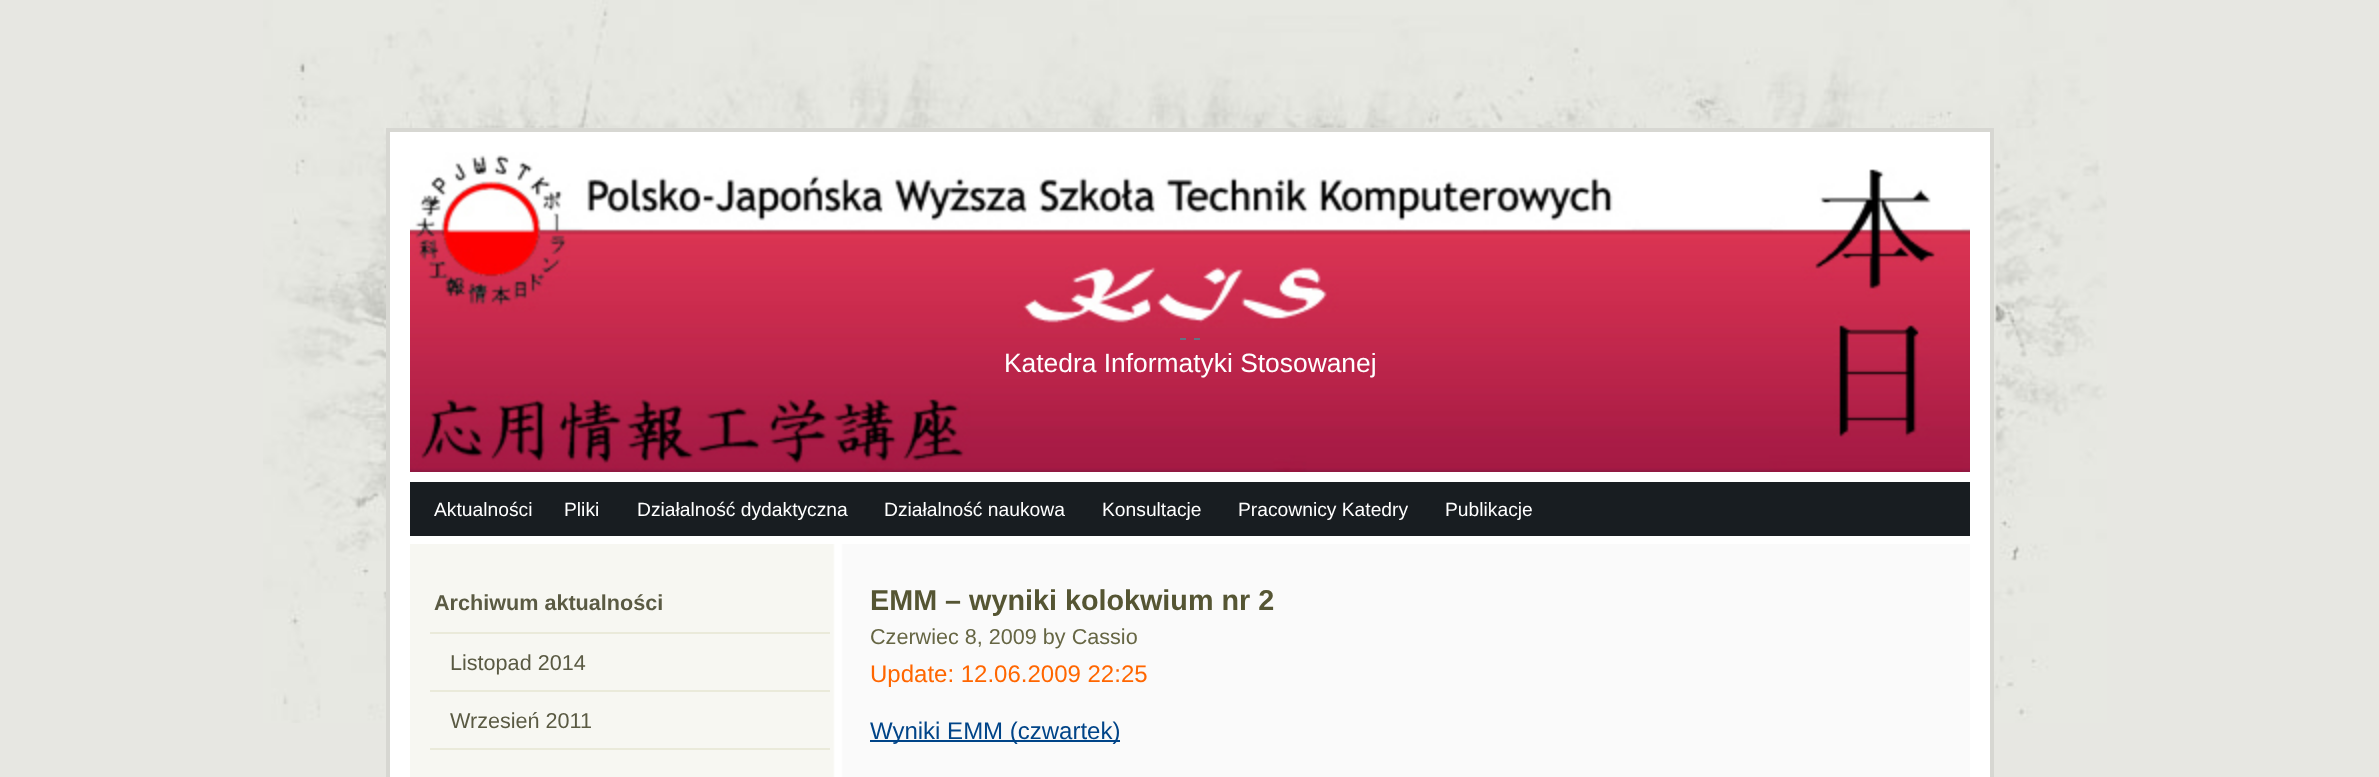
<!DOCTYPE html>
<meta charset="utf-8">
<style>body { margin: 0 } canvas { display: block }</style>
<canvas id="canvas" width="2379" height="777"></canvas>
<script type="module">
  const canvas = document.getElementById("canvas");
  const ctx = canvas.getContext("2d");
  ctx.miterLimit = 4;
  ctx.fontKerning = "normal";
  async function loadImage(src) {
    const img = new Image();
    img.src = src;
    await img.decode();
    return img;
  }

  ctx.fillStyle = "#e7e7e2";
  ctx.fillRect(0, 0, 2379, 777);
  ctx.drawImage(await loadImage("img1.png"), 263, 0, 1844, 723);
  ctx.fillStyle = "#ffffff";
  ctx.beginPath();
  ctx.rect(388, 130, 1604, 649);
  ctx.fill();
  ctx.strokeStyle = "#d7d7d2";
  ctx.lineWidth = 4;
  ctx.stroke();
  ctx.drawImage(await loadImage("img2.png"), 410, 152, 1560, 320);
  ctx.beginPath();
  ctx.moveTo(1180, 339);
  ctx.lineTo(1186, 339);
  ctx.moveTo(1194, 339);
  ctx.lineTo(1200, 339);
  ctx.strokeStyle = "#657382";
  ctx.lineWidth = 2;
  ctx.stroke();
  ctx.font = "26.4px Liberation Sans";
  ctx.fillText("Katedra Informatyki Stosowanej", 1004, 372);
  ctx.fillStyle = "#181d21";
  ctx.fillRect(410, 482, 1560, 54);
  ctx.font = "19.25px Liberation Sans";
  ctx.fillStyle = "#ffffff";
  ctx.fillText("Aktualności", 434, 516);
  ctx.fillText("Pliki", 564, 516);
  ctx.fillText("Działalność dydaktyczna", 637, 516);
  ctx.fillText("Działalność naukowa", 884, 516);
  ctx.fillText("Konsultacje", 1102, 516);
  ctx.fillText("Pracownicy Katedry", 1238, 516);
  ctx.fillText("Publikacje", 1445, 516);
  ctx.drawImage(await loadImage("img3.png"), 410, 544, 1560, 233);
  ctx.font = "bold 21.6px Liberation Sans";
  ctx.fillStyle = "#5a5a43";
  ctx.fillText("Archiwum aktualności", 434, 610);
  ctx.fillStyle = "#eaeada";
  ctx.fillRect(430, 632, 400, 2);
  ctx.fillRect(430, 690, 400, 2);
  ctx.font = "21.6px Liberation Sans";
  ctx.fillStyle = "#5a5a43";
  ctx.fillText("Listopad 2014", 450, 670);
  ctx.fillStyle = "#eaeada";
  ctx.fillRect(430, 748, 400, 2);
  ctx.fillStyle = "#5a5a43";
  ctx.fillText("Wrzesień 2011", 450, 728);
  ctx.font = "bold 28.75px Liberation Sans";
  ctx.fillStyle = "#555533";
  ctx.fillText("EMM – wyniki kolokwium nr 2", 870, 610);
  ctx.font = "21.6px Liberation Sans";
  ctx.fillStyle = "#666644";
  ctx.fillText("Czerwiec 8, 2009 by Cassio", 870, 644);
  ctx.font = "24px Liberation Sans";
  ctx.fillStyle = "#ff6600";
  ctx.fillText("Update: 12.06.2009 22:25", 870, 682);
  ctx.fillStyle = "#004488";
  ctx.fillRect(870, 740, 250, 2);
  ctx.fillText("Wyniki EMM (czwartek)", 870, 739);
</script>
